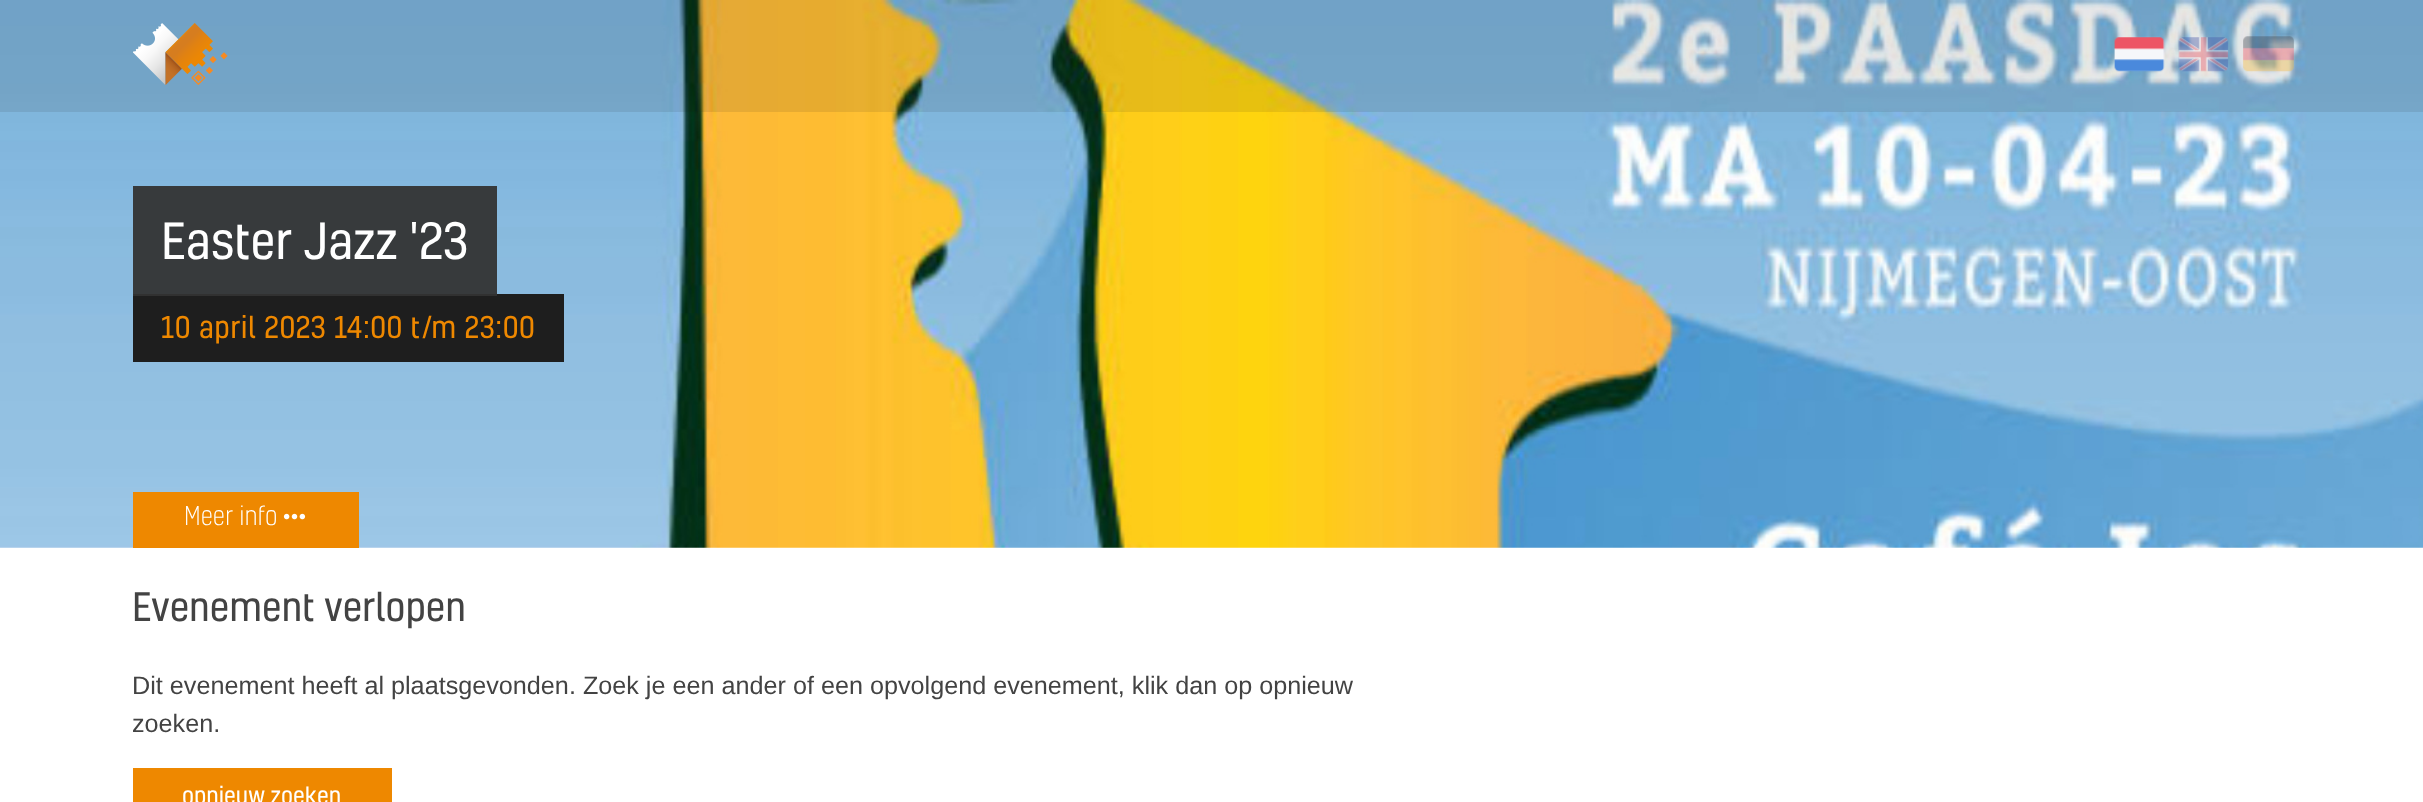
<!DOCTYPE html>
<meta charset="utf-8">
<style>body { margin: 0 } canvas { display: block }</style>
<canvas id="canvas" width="2423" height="802"></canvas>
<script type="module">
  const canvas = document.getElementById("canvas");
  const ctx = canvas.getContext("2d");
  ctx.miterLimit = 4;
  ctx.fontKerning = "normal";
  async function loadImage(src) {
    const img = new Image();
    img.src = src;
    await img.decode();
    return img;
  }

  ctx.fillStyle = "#ffffff";
  ctx.fillRect(0, 0, 2423, 802);
  ctx.drawImage(await loadImage("img1.png"), 0, 0, 2423, 548);
  ctx.fillStyle = "rgba(32, 32, 32, 0.1)";
  ctx.fillRect(0, 0, 2423, 112);
  ctx.drawImage(await loadImage("img2.png"), 133, 23, 95, 62);
  ctx.drawImage(await loadImage("img3.png"), 2114, 36, 51, 36);
  ctx.drawImage(await loadImage("img4.png"), 2178, 37, 51, 35);
  ctx.drawImage(await loadImage("img5.png"), 2243, 36, 51, 36);
  ctx.fillStyle = "#1e1e1e";
  ctx.fillRect(133, 294, 431, 68);
  ctx.fillStyle = "rgba(51, 51, 51, 0.95)";
  ctx.fillRect(133, 186, 364, 110);
  ctx.font = "48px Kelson";
  ctx.fillStyle = "#ffffff";
  ctx.fillText("Easter Jazz '23", 161, 259);
  ctx.letterSpacing = "0.5px";
  ctx.font = "28.75px Kelson";
  ctx.fillStyle = "#ee8800";
  ctx.fillText("10 april 2023 14:00 t/m 23:00", 161, 338);
  ctx.fillRect(133, 492, 226, 56);
  ctx.letterSpacing = "0px";
  ctx.font = "300 25px Kelson";
  ctx.fillStyle = "#ffffff";
  ctx.fillText("Meer info", 184, 525);
  ctx.drawImage(await loadImage("img6.png"), 283, 513, 23, 7);
  ctx.font = "37.75px Kelson";
  ctx.fillStyle = "#434343";
  ctx.fillText("Evenement verlopen", 132, 621);
  ctx.font = "25.2px Arimo";
  ctx.fillText("Dit evenement heeft al plaatsgevonden. Zoek je een ander of een opvolgend evenement, klik dan op opnieuw", 132, 694);
  ctx.fillText("zoeken.", 132, 732);
  ctx.fillStyle = "#ee8800";
  ctx.fillRect(133, 768, 259, 34);
  ctx.font = "22.75px Kelson";
  ctx.fillStyle = "#ffffff";
  ctx.fillText("opnieuw zoeken", 182, 804);
</script>
